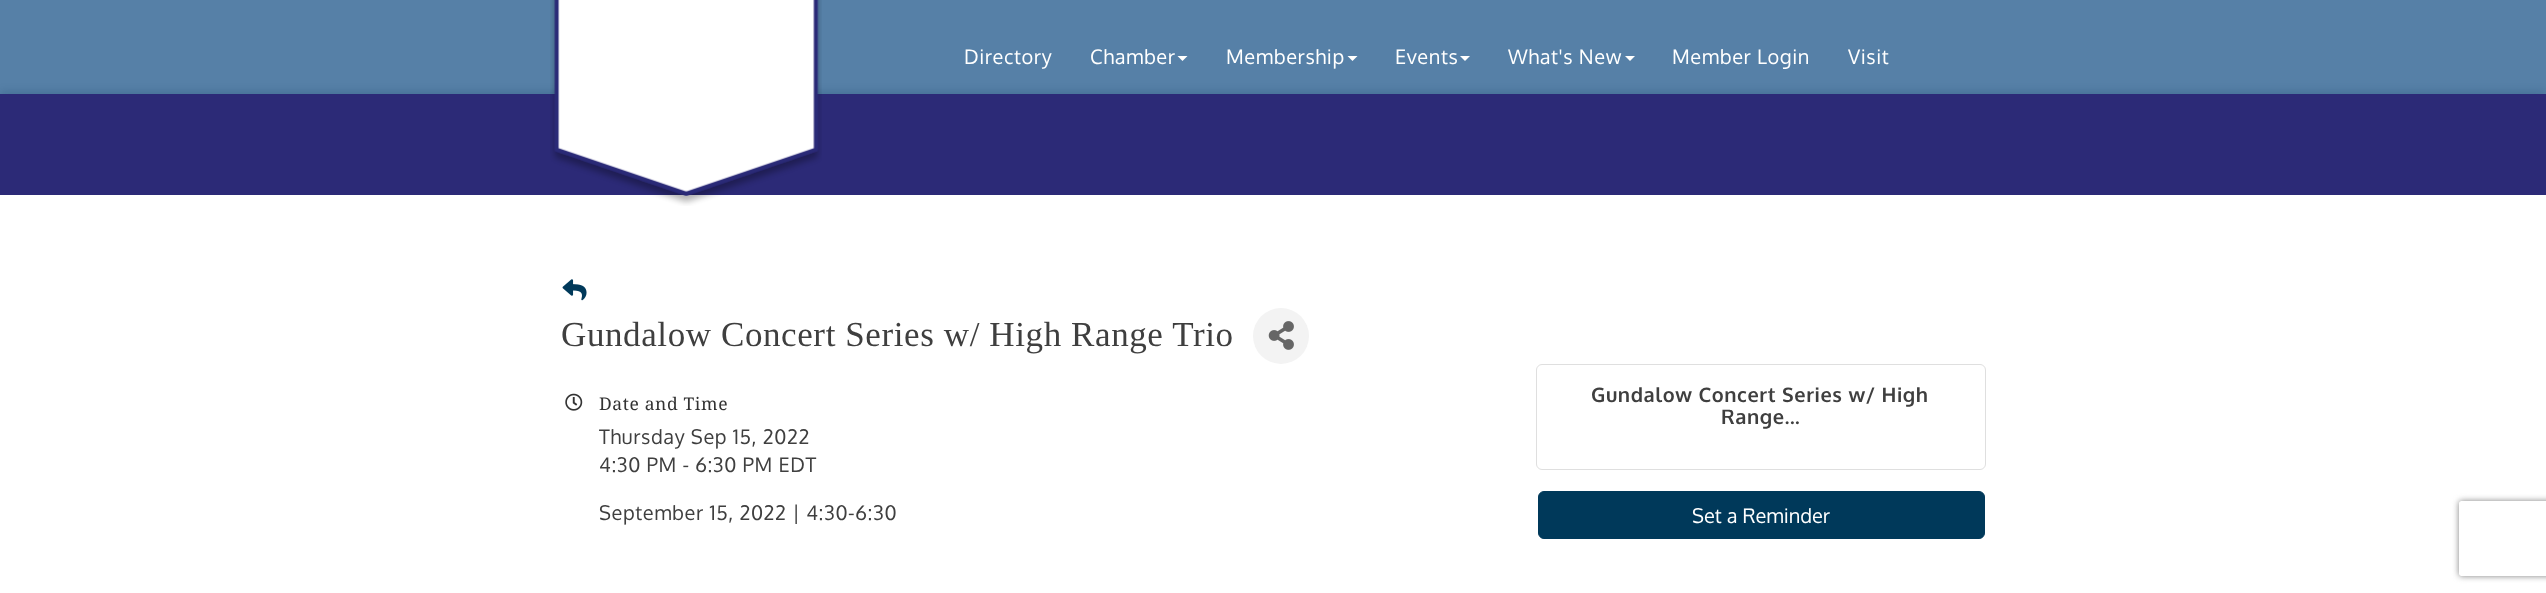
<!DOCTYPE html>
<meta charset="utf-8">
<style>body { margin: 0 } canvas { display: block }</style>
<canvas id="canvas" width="2546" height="593"></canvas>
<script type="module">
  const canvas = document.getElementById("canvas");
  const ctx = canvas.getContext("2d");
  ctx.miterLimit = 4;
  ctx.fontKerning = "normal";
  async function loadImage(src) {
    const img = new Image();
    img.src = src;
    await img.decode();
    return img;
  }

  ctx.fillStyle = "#f3f3f3";
  ctx.fillRect(0, 0, 2546, 593);
  ctx.fillStyle = "rgba(0, 0, 0, 0.3)";
  ctx.filter = "blur(4px)";
  ctx.beginPath();
  ctx.rect(0, 91, 2546, 102);
  ctx.fill();
  ctx.filter = "none";
  ctx.fillStyle = "rgba(46, 99, 148, 0.8)";
  ctx.fillRect(0, 0, 2546, 94);
  ctx.fillStyle = "#2c2a77";
  ctx.fillRect(0, 94, 2546, 101);
  ctx.fillStyle = "#ffffff";
  ctx.fillRect(0, 195, 2546, 398);
  ctx.drawImage(await loadImage("img1.png"), 550, 0, 272, 206);
  ctx.letterSpacing = "0.6px";
  ctx.font = "20px Oxygen";
  ctx.fillText("Directory", 964, 64);
  ctx.fillText("Chamber", 1090, 64);
  ctx.beginPath();
  ctx.moveTo(1177.5, 56);
  ctx.lineTo(1187.5, 56);
  ctx.lineTo(1182.5, 61);
  ctx.closePath();
  ctx.fill();
  ctx.fillText("Membership", 1226, 64);
  ctx.beginPath();
  ctx.moveTo(1347.5, 56);
  ctx.lineTo(1357.5, 56);
  ctx.lineTo(1352.5, 61);
  ctx.closePath();
  ctx.fill();
  ctx.fillText("Events", 1395, 64);
  ctx.beginPath();
  ctx.moveTo(1460, 56);
  ctx.lineTo(1470, 56);
  ctx.lineTo(1465, 61);
  ctx.closePath();
  ctx.fill();
  ctx.fillText("What's New", 1508, 64);
  ctx.beginPath();
  ctx.moveTo(1625, 56);
  ctx.lineTo(1635, 56);
  ctx.lineTo(1630, 61);
  ctx.closePath();
  ctx.fill();
  ctx.fillText("Member Login", 1672, 64);
  ctx.fillText("Visit", 1848, 64);
  ctx.drawImage(await loadImage("img2.png"), 562, 279, 25, 22);
  ctx.font = "35px Liberation Serif";
  ctx.fillStyle = "#3f3f3f";
  ctx.fillText("Gundalow Concert Series w/ High Range Trio", 561, 346);
  ctx.fillStyle = "#f3f3f3";
  ctx.beginPath();
  ctx.arc(1281, 336, 28, 0, Math.PI * 2);
  ctx.fill();
  ctx.drawImage(await loadImage("img3.png"), 1268, 321, 26, 29);
  ctx.drawImage(await loadImage("img4.png"), 565, 393, 18, 18);
  ctx.font = "17.5px Noto Serif";
  ctx.fillStyle = "#333333";
  ctx.fillText("Date and Time", 599, 410);
  ctx.font = "20px Oxygen";
  ctx.fillStyle = "#3f3f3f";
  ctx.fillText("Thursday Sep 15, 2022", 599, 444);
  ctx.fillText("4:30 PM - 6:30 PM EDT", 599, 472);
  ctx.fillText("September 15, 2022 | 4:30-6:30", 599, 520);
  ctx.beginPath();
  ctx.roundRect(1536.5, 364.5, 449, 105, 5.5);
  ctx.strokeStyle = "#dfdfdf";
  ctx.stroke();
  ctx.font = "bold 20px Oxygen";
  ctx.fillText("Gundalow Concert Series w/ High", 1591, 402);
  ctx.fillText("Range...", 1721, 424);
  ctx.fillStyle = "#00395a";
  ctx.beginPath();
  ctx.roundRect(1538.5, 491.5, 446, 47, 5.5);
  ctx.fill();
  ctx.strokeStyle = "#00395a";
  ctx.stroke();
  ctx.letterSpacing = "0px";
  ctx.font = "20px Oxygen";
  ctx.fillStyle = "#ffffff";
  ctx.fillText("Set a Reminder", 1692, 523);
  ctx.save();
  ctx.beginPath();
  ctx.moveTo(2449, 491);
  ctx.lineTo(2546, 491);
  ctx.lineTo(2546, 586);
  ctx.lineTo(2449, 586);
  ctx.closePath();
  ctx.moveTo(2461.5, 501);
  ctx.lineTo(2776.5, 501);
  ctx.bezierCurveTo(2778, 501, 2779, 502, 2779, 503.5);
  ctx.lineTo(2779, 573.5);
  ctx.bezierCurveTo(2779, 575, 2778, 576, 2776.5, 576);
  ctx.lineTo(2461.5, 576);
  ctx.bezierCurveTo(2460, 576, 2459, 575, 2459, 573.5);
  ctx.lineTo(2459, 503.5);
  ctx.bezierCurveTo(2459, 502, 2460, 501, 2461.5, 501);
  ctx.closePath();
  ctx.clip("evenodd");
  ctx.fillStyle = "#808080";
  ctx.filter = "blur(3px)";
  ctx.beginPath();
  ctx.roundRect(2459, 501, 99, 75, 2.5);
  ctx.fill();
  ctx.filter = "none";
  ctx.restore();
</script>
